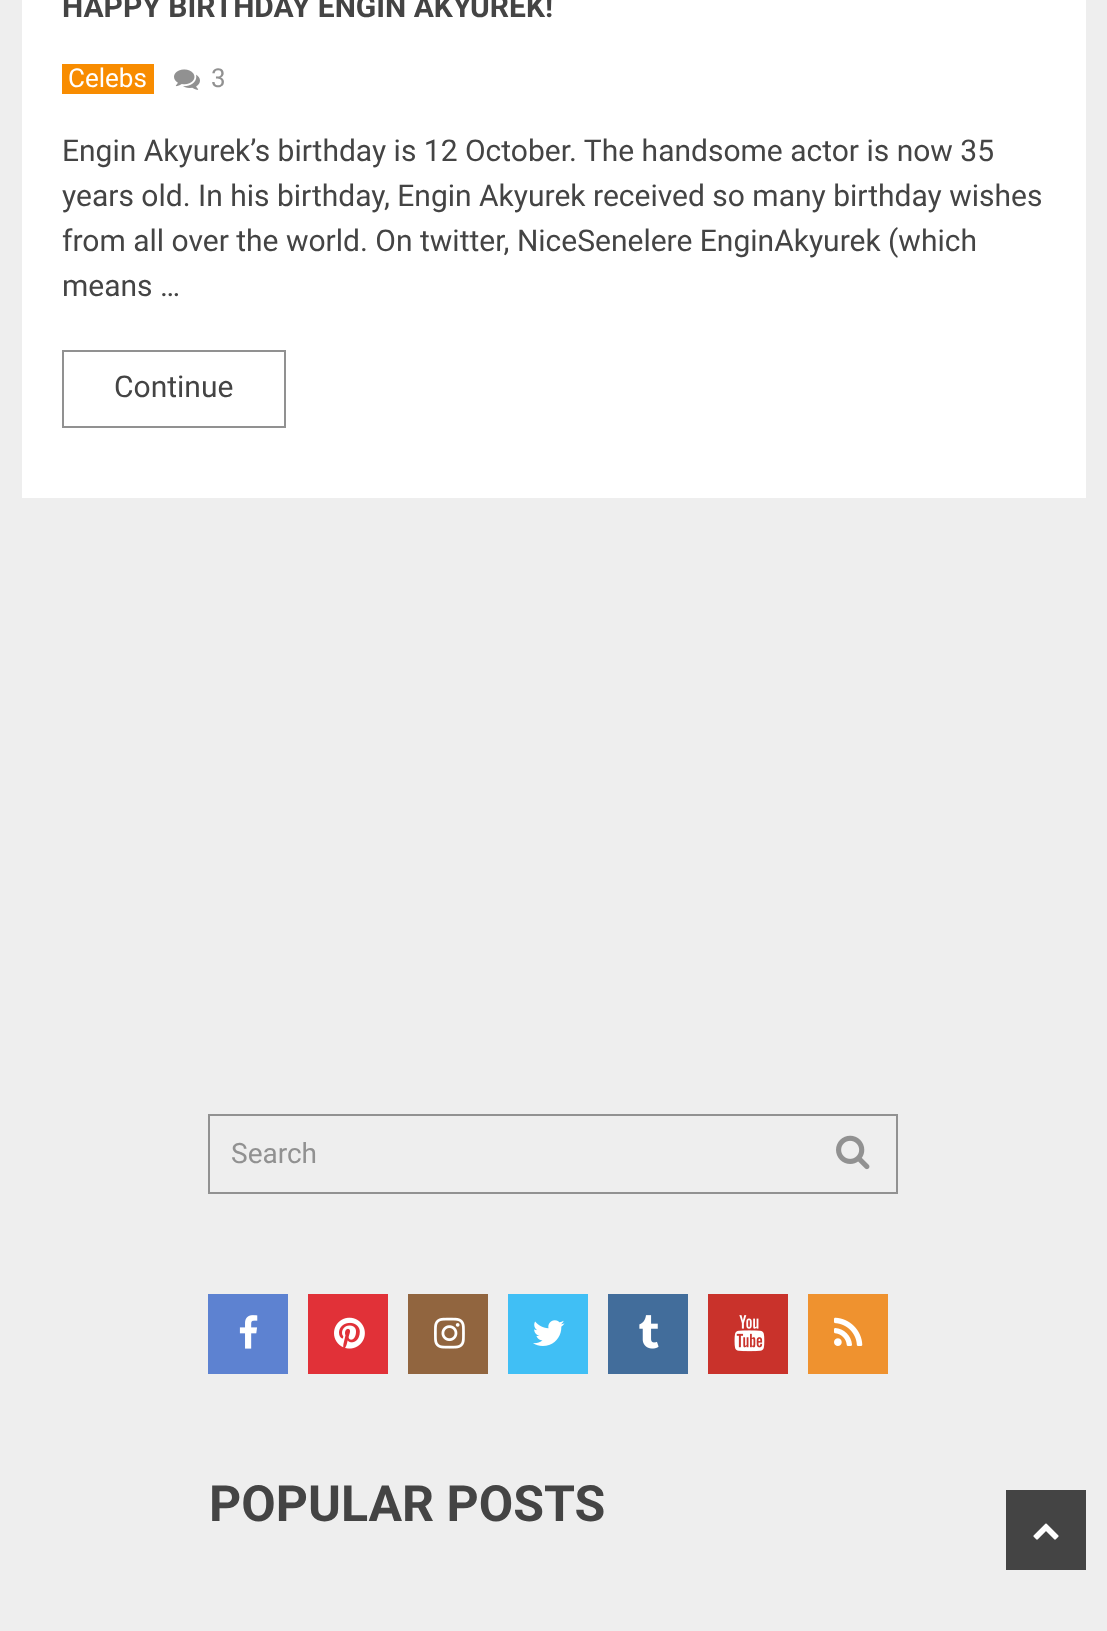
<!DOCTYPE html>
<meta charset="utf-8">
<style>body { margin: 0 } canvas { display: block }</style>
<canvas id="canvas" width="1107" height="1631"></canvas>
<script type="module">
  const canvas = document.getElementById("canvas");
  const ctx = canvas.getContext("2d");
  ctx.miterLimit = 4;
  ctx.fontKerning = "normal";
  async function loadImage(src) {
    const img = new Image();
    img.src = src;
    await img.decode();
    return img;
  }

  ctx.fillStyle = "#eeeeee";
  ctx.fillRect(0, 0, 1107, 1631);
  ctx.fillStyle = "#ffffff";
  ctx.fillRect(22, 0, 1064, 498);
  ctx.font = "bold 30px Roboto";
  ctx.fillStyle = "#444444";
  ctx.fillText("HAPPY BIRTHDAY ENGIN AKYUREK!", 62, 17);
  ctx.fillStyle = "#f88c00";
  ctx.fillRect(62, 64, 92, 30);
  ctx.font = "26px Roboto";
  ctx.fillStyle = "#ffffff";
  ctx.fillText("Celebs", 68, 87);
  ctx.drawImage(await loadImage("img1.png"), 174, 69, 26, 21);
  ctx.fillStyle = "#919191";
  ctx.fillText("3", 211, 87);
  ctx.font = "30px Roboto";
  ctx.fillStyle = "#444444";
  ctx.fillText("Engin Akyurek’s birthday is 12 October. The handsome actor is now 35", 62, 161);
  ctx.fillText("years old. In his birthday, Engin Akyurek received so many birthday wishes", 62, 206);
  ctx.fillText("from all over the world. On twitter, NiceSenelere EnginAkyurek (which", 62, 251);
  ctx.fillText("means …", 62, 296);
  ctx.strokeStyle = "#919191";
  ctx.lineWidth = 2;
  ctx.strokeRect(63, 351, 222, 76);
  ctx.fillText("Continue", 114, 397);
  ctx.strokeRect(209, 1115, 688, 78);
  ctx.font = "28px Roboto";
  ctx.fillStyle = "#919191";
  ctx.fillText("Search", 231, 1163);
  ctx.drawImage(await loadImage("img2.png"), 836, 1135, 34, 35);
  ctx.fillStyle = "#5d82d1";
  ctx.fillRect(208, 1294, 80, 80);
  ctx.drawImage(await loadImage("img3.png"), 239, 1315, 19, 34);
  ctx.fillStyle = "#e13138";
  ctx.fillRect(308, 1294, 80, 80);
  ctx.drawImage(await loadImage("img4.png"), 334, 1317, 31, 32);
  ctx.fillStyle = "#91653f";
  ctx.fillRect(408, 1294, 80, 80);
  ctx.drawImage(await loadImage("img5.png"), 434, 1317, 31, 32);
  ctx.fillStyle = "#40bff5";
  ctx.fillRect(508, 1294, 80, 80);
  ctx.drawImage(await loadImage("img6.png"), 533, 1320, 32, 26);
  ctx.fillStyle = "#426d9b";
  ctx.fillRect(608, 1294, 80, 80);
  ctx.drawImage(await loadImage("img7.png"), 639, 1315, 20, 34);
  ctx.fillStyle = "#c9322b";
  ctx.fillRect(708, 1294, 80, 80);
  ctx.drawImage(await loadImage("img8.png"), 734, 1315, 31, 37);
  ctx.fillStyle = "#ef922f";
  ctx.fillRect(808, 1294, 80, 80);
  ctx.drawImage(await loadImage("img9.png"), 834, 1317, 29, 29);
  ctx.font = "bold 50px Roboto";
  ctx.fillStyle = "#444444";
  ctx.fillText("POPULAR POSTS", 209, 1521);
  ctx.fillRect(1006, 1490, 80, 80);
  ctx.drawImage(await loadImage("img10.png"), 1033, 1523, 26, 17);
</script>
